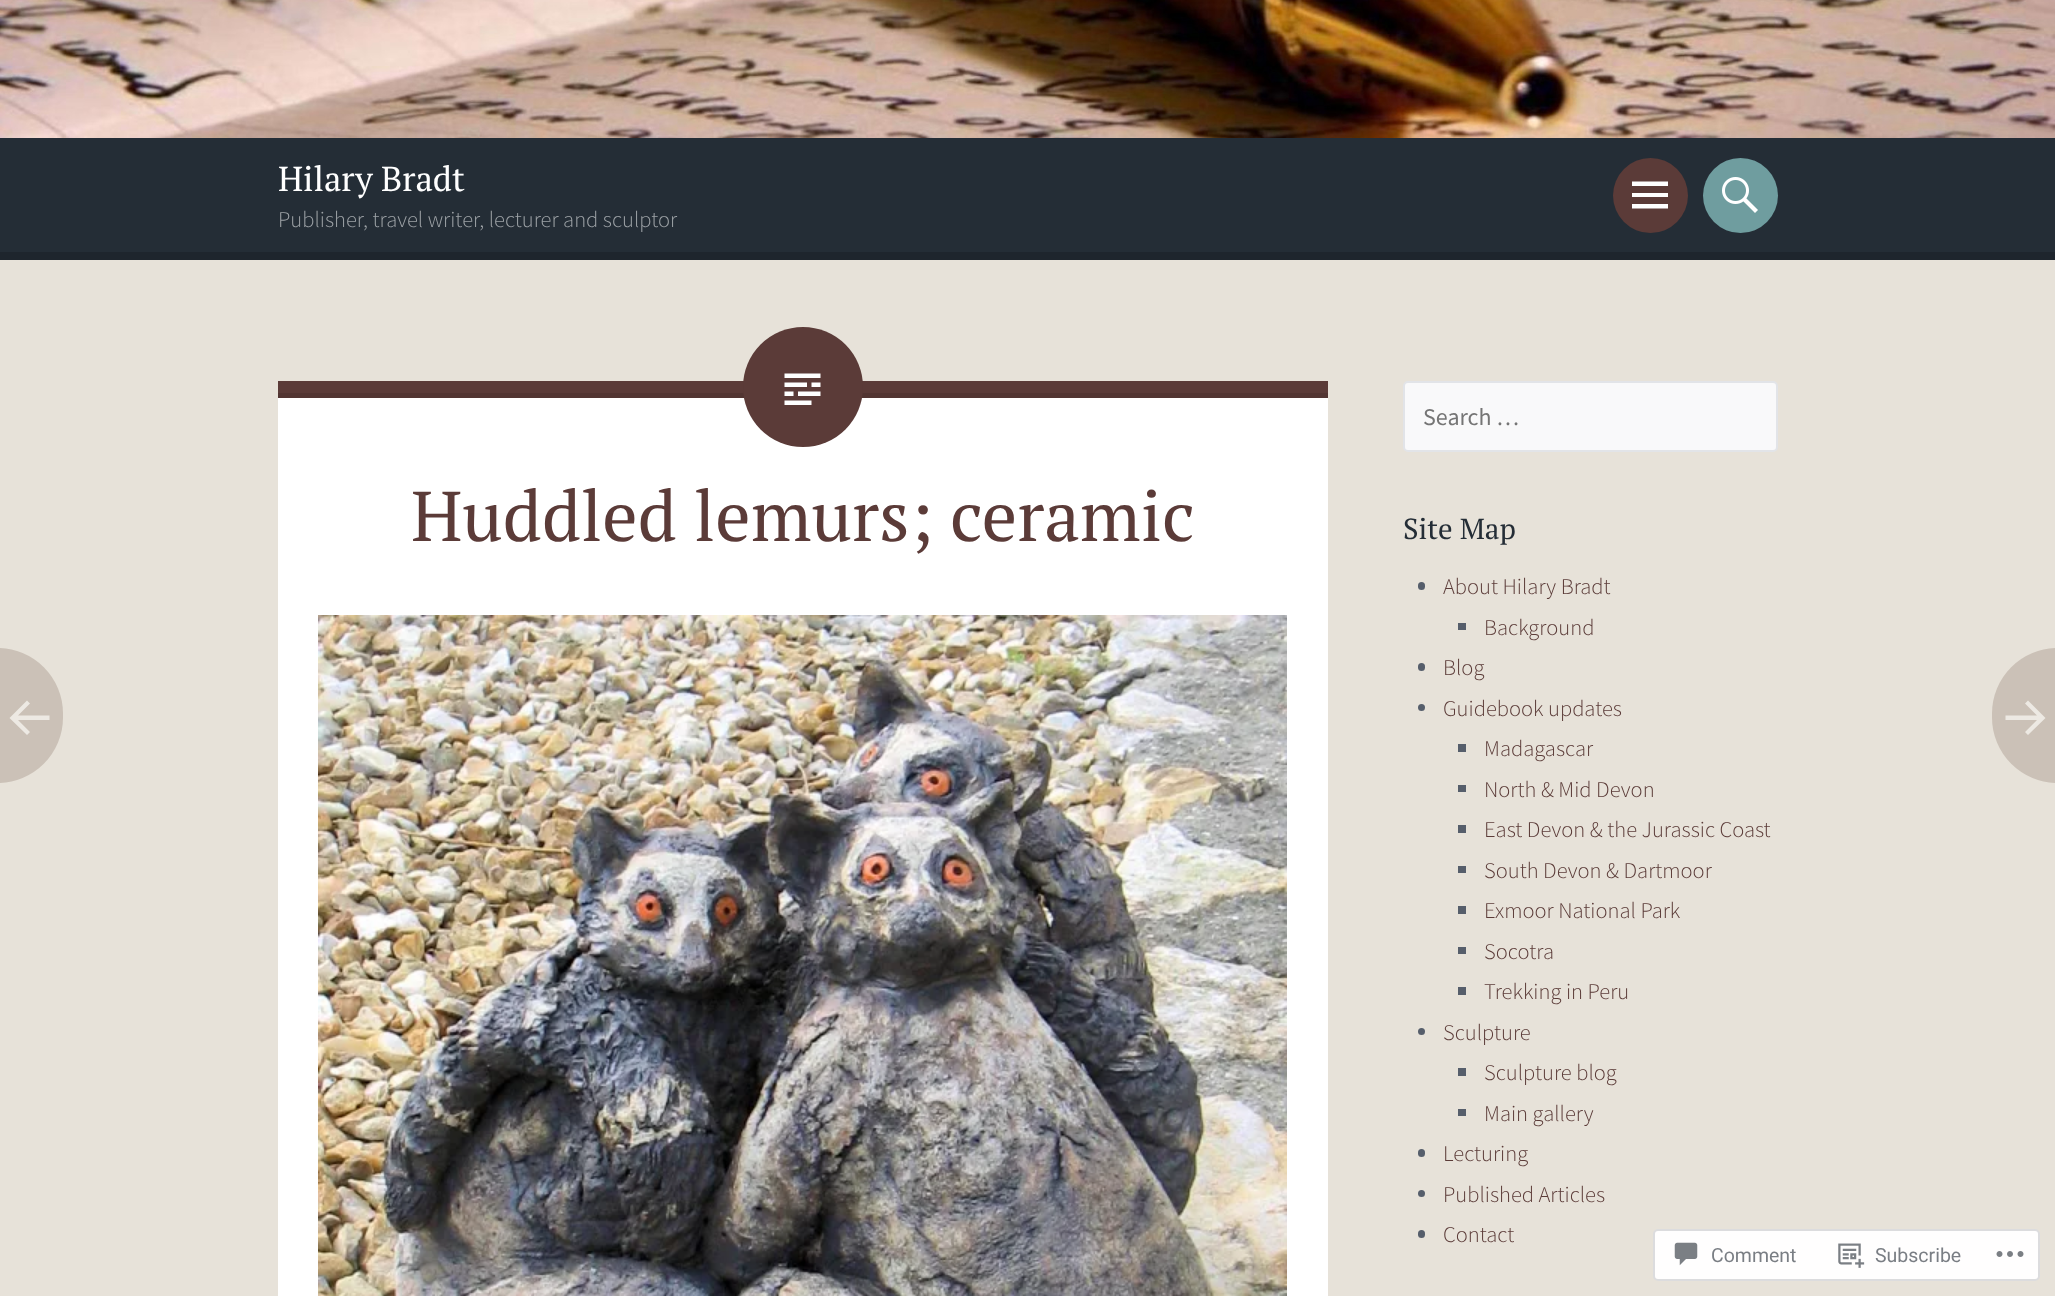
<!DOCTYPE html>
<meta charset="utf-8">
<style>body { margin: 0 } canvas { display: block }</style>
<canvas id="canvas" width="2055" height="1296"></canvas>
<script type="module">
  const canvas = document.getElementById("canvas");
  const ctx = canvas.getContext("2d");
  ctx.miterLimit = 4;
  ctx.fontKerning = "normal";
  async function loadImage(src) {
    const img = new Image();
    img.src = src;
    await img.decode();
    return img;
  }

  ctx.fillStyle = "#e7e2d9";
  ctx.fillRect(0, 0, 2055, 1296);
  ctx.fillStyle = "#242d36";
  ctx.fillRect(0, 138, 2055, 114);
  ctx.fillStyle = "#1e252d";
  ctx.fillRect(0, 252, 2055, 8);
  ctx.drawImage(await loadImage("img1.png"), 0, 0, 2055, 138);
  ctx.font = "34.5px PT Serif";
  ctx.fillStyle = "#ffffff";
  ctx.fillText("Hilary Bradt", 278, 191);
  ctx.font = "300 22.5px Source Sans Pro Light";
  ctx.fillStyle = "#9ea3a7";
  ctx.fillText("Publisher, travel writer, lecturer and sculptor", 278, 227);
  ctx.fillStyle = "#5b3b38";
  ctx.beginPath();
  ctx.arc(1650.5, 195.5, 37.5, 0, Math.PI * 2);
  ctx.fill();
  ctx.fillStyle = "#ffffff";
  ctx.beginPath();
  ctx.moveTo(1632, 208.5);
  ctx.lineTo(1632, 204);
  ctx.lineTo(1668, 204);
  ctx.lineTo(1668, 208.5);
  ctx.closePath();
  ctx.moveTo(1632, 181.5);
  ctx.lineTo(1668, 181.5);
  ctx.lineTo(1668, 186);
  ctx.lineTo(1632, 186);
  ctx.closePath();
  ctx.moveTo(1632, 197);
  ctx.lineTo(1632, 193);
  ctx.lineTo(1668, 193);
  ctx.lineTo(1668, 197);
  ctx.closePath();
  ctx.fill();
  ctx.fillStyle = "#6f9d9f";
  ctx.beginPath();
  ctx.arc(1740.5, 195.5, 37.5, 0, Math.PI * 2);
  ctx.fill();
  ctx.drawImage(await loadImage("img2.png"), 1722, 177, 36, 36);
  ctx.fillStyle = "#ffffff";
  ctx.fillRect(278, 398, 1050, 898);
  ctx.fillStyle = "#5b3b38";
  ctx.fillRect(278, 381, 1050, 12);
  ctx.fillStyle = "#523532";
  ctx.fillRect(278, 393, 1050, 5);
  ctx.fillStyle = "#5b3b38";
  ctx.beginPath();
  ctx.arc(803, 387, 60, 0, Math.PI * 2);
  ctx.fill();
  ctx.drawImage(await loadImage("img3.png"), 784, 373, 37, 32);
  ctx.font = "70.5px PT Serif";
  ctx.fillText("Huddled lemurs; ceramic", 411, 541);
  ctx.drawImage(await loadImage("img4.png"), 318, 615, 969, 681);
  ctx.fillStyle = "#cbc1b7";
  ctx.beginPath();
  ctx.roundRect(-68, 648, 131, 135, 67.5);
  ctx.fill();
  ctx.fillStyle = "#ede9e3";
  ctx.beginPath();
  ctx.moveTo(27, 700.5);
  ctx.lineTo(30, 703.5);
  ctx.lineTo(18, 715.5);
  ctx.lineTo(49.5, 715.5);
  ctx.lineTo(49.5, 720);
  ctx.lineTo(18, 720);
  ctx.lineTo(30, 732);
  ctx.lineTo(27, 735);
  ctx.lineTo(9.5, 718);
  ctx.closePath();
  ctx.fill();
  ctx.fillStyle = "#cbc1b7";
  ctx.beginPath();
  ctx.roundRect(1992, 648, 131, 135, 67.5);
  ctx.fill();
  ctx.fillStyle = "#ede9e3";
  ctx.beginPath();
  ctx.moveTo(2028, 700.5);
  ctx.lineTo(2045.5, 718);
  ctx.lineTo(2028, 735);
  ctx.lineTo(2025, 732);
  ctx.lineTo(2037, 720);
  ctx.lineTo(2005.5, 720);
  ctx.lineTo(2005.5, 715.5);
  ctx.lineTo(2037, 715.5);
  ctx.lineTo(2025, 703.5);
  ctx.closePath();
  ctx.fill();
  ctx.fillStyle = "#f9f9fa";
  ctx.beginPath();
  ctx.roundRect(1404, 382, 373, 69, 4);
  ctx.fill();
  ctx.strokeStyle = "#e2e4e8";
  ctx.lineWidth = 2;
  ctx.stroke();
  ctx.font = "24px Source Sans Pro";
  ctx.fillStyle = "#757575";
  ctx.fillText("Search …", 1423, 425);
  ctx.font = "29px PT Serif";
  ctx.fillStyle = "#242d36";
  ctx.fillText("Site Map", 1403, 539);
  ctx.fillStyle = "#565e6b";
  ctx.beginPath();
  ctx.roundRect(1418, 582, 7, 8, 3.5);
  ctx.fill();
  ctx.font = "300 22.5px Source Sans Pro Light";
  ctx.fillStyle = "#5b3b38";
  ctx.fillText("About Hilary Bradt", 1443, 594);
  ctx.fillStyle = "#565e6b";
  ctx.fillRect(1458, 623, 8, 7);
  ctx.fillStyle = "#5b3b38";
  ctx.fillText("Background", 1484, 635);
  ctx.fillStyle = "#565e6b";
  ctx.beginPath();
  ctx.roundRect(1418, 663, 7, 8, 3.5);
  ctx.fill();
  ctx.fillStyle = "#5b3b38";
  ctx.fillText("Blog", 1443, 675);
  ctx.fillStyle = "#565e6b";
  ctx.beginPath();
  ctx.arc(1421.5, 707.5, 3.5, 0, Math.PI * 2);
  ctx.fill();
  ctx.fillStyle = "#5b3b38";
  ctx.fillText("Guidebook updates", 1443, 716);
  ctx.fillStyle = "#565e6b";
  ctx.fillRect(1458, 744, 8, 8);
  ctx.fillStyle = "#5b3b38";
  ctx.fillText("Madagascar", 1484, 756);
  ctx.fillStyle = "#565e6b";
  ctx.fillRect(1458, 785, 8, 7);
  ctx.fillStyle = "#5b3b38";
  ctx.fillText("North & Mid Devon", 1484, 797);
  ctx.fillStyle = "#565e6b";
  ctx.fillRect(1458, 825, 8, 8);
  ctx.fillStyle = "#5b3b38";
  ctx.fillText("East Devon & the Jurassic Coast", 1484, 837);
  ctx.fillStyle = "#565e6b";
  ctx.fillRect(1458, 866, 8, 7);
  ctx.fillStyle = "#5b3b38";
  ctx.fillText("South Devon & Dartmoor", 1484, 878);
  ctx.fillStyle = "#565e6b";
  ctx.fillRect(1458, 906, 8, 8);
  ctx.fillStyle = "#5b3b38";
  ctx.fillText("Exmoor National Park", 1484, 918);
  ctx.fillStyle = "#565e6b";
  ctx.fillRect(1458, 947, 8, 7);
  ctx.fillStyle = "#5b3b38";
  ctx.fillText("Socotra", 1484, 959);
  ctx.fillStyle = "#565e6b";
  ctx.fillRect(1458, 987, 8, 8);
  ctx.fillStyle = "#5b3b38";
  ctx.fillText("Trekking in Peru", 1484, 999);
  ctx.fillStyle = "#565e6b";
  ctx.beginPath();
  ctx.arc(1421.5, 1031.5, 3.5, 0, Math.PI * 2);
  ctx.fill();
  ctx.fillStyle = "#5b3b38";
  ctx.fillText("Sculpture", 1443, 1040);
  ctx.fillStyle = "#565e6b";
  ctx.fillRect(1458, 1068, 8, 8);
  ctx.fillStyle = "#5b3b38";
  ctx.fillText("Sculpture blog", 1484, 1080);
  ctx.fillStyle = "#565e6b";
  ctx.fillRect(1458, 1109, 8, 7);
  ctx.fillStyle = "#5b3b38";
  ctx.fillText("Main gallery", 1484, 1121);
  ctx.fillStyle = "#565e6b";
  ctx.beginPath();
  ctx.roundRect(1418, 1149, 7, 8, 3.5);
  ctx.fill();
  ctx.fillStyle = "#5b3b38";
  ctx.fillText("Lecturing", 1443, 1161);
  ctx.fillStyle = "#565e6b";
  ctx.beginPath();
  ctx.arc(1421.5, 1193.5, 3.5, 0, Math.PI * 2);
  ctx.fill();
  ctx.fillStyle = "#5b3b38";
  ctx.fillText("Published Articles", 1443, 1202);
  ctx.fillStyle = "#565e6b";
  ctx.beginPath();
  ctx.roundRect(1418, 1230, 7, 8, 3.5);
  ctx.fill();
  ctx.fillStyle = "#5b3b38";
  ctx.fillText("Contact", 1443, 1242);
  ctx.fillStyle = "#fffefe";
  ctx.beginPath();
  ctx.roundRect(1654, 1230, 385, 50, 4);
  ctx.fill();
  ctx.strokeStyle = "#dcdcde";
  ctx.stroke();
  ctx.drawImage(await loadImage("img5.png"), 1674, 1242, 24, 24);
  ctx.font = "19.5px Roboto";
  ctx.fillStyle = "#7a7e84";
  ctx.fillText("Comment", 1711, 1262);
  ctx.drawImage(await loadImage("img6.png"), 1838, 1243, 27, 25);
  ctx.fillText("Subscribe", 1875, 1262);
  ctx.drawImage(await loadImage("img7.png"), 1996, 1251, 28, 6);
</script>
